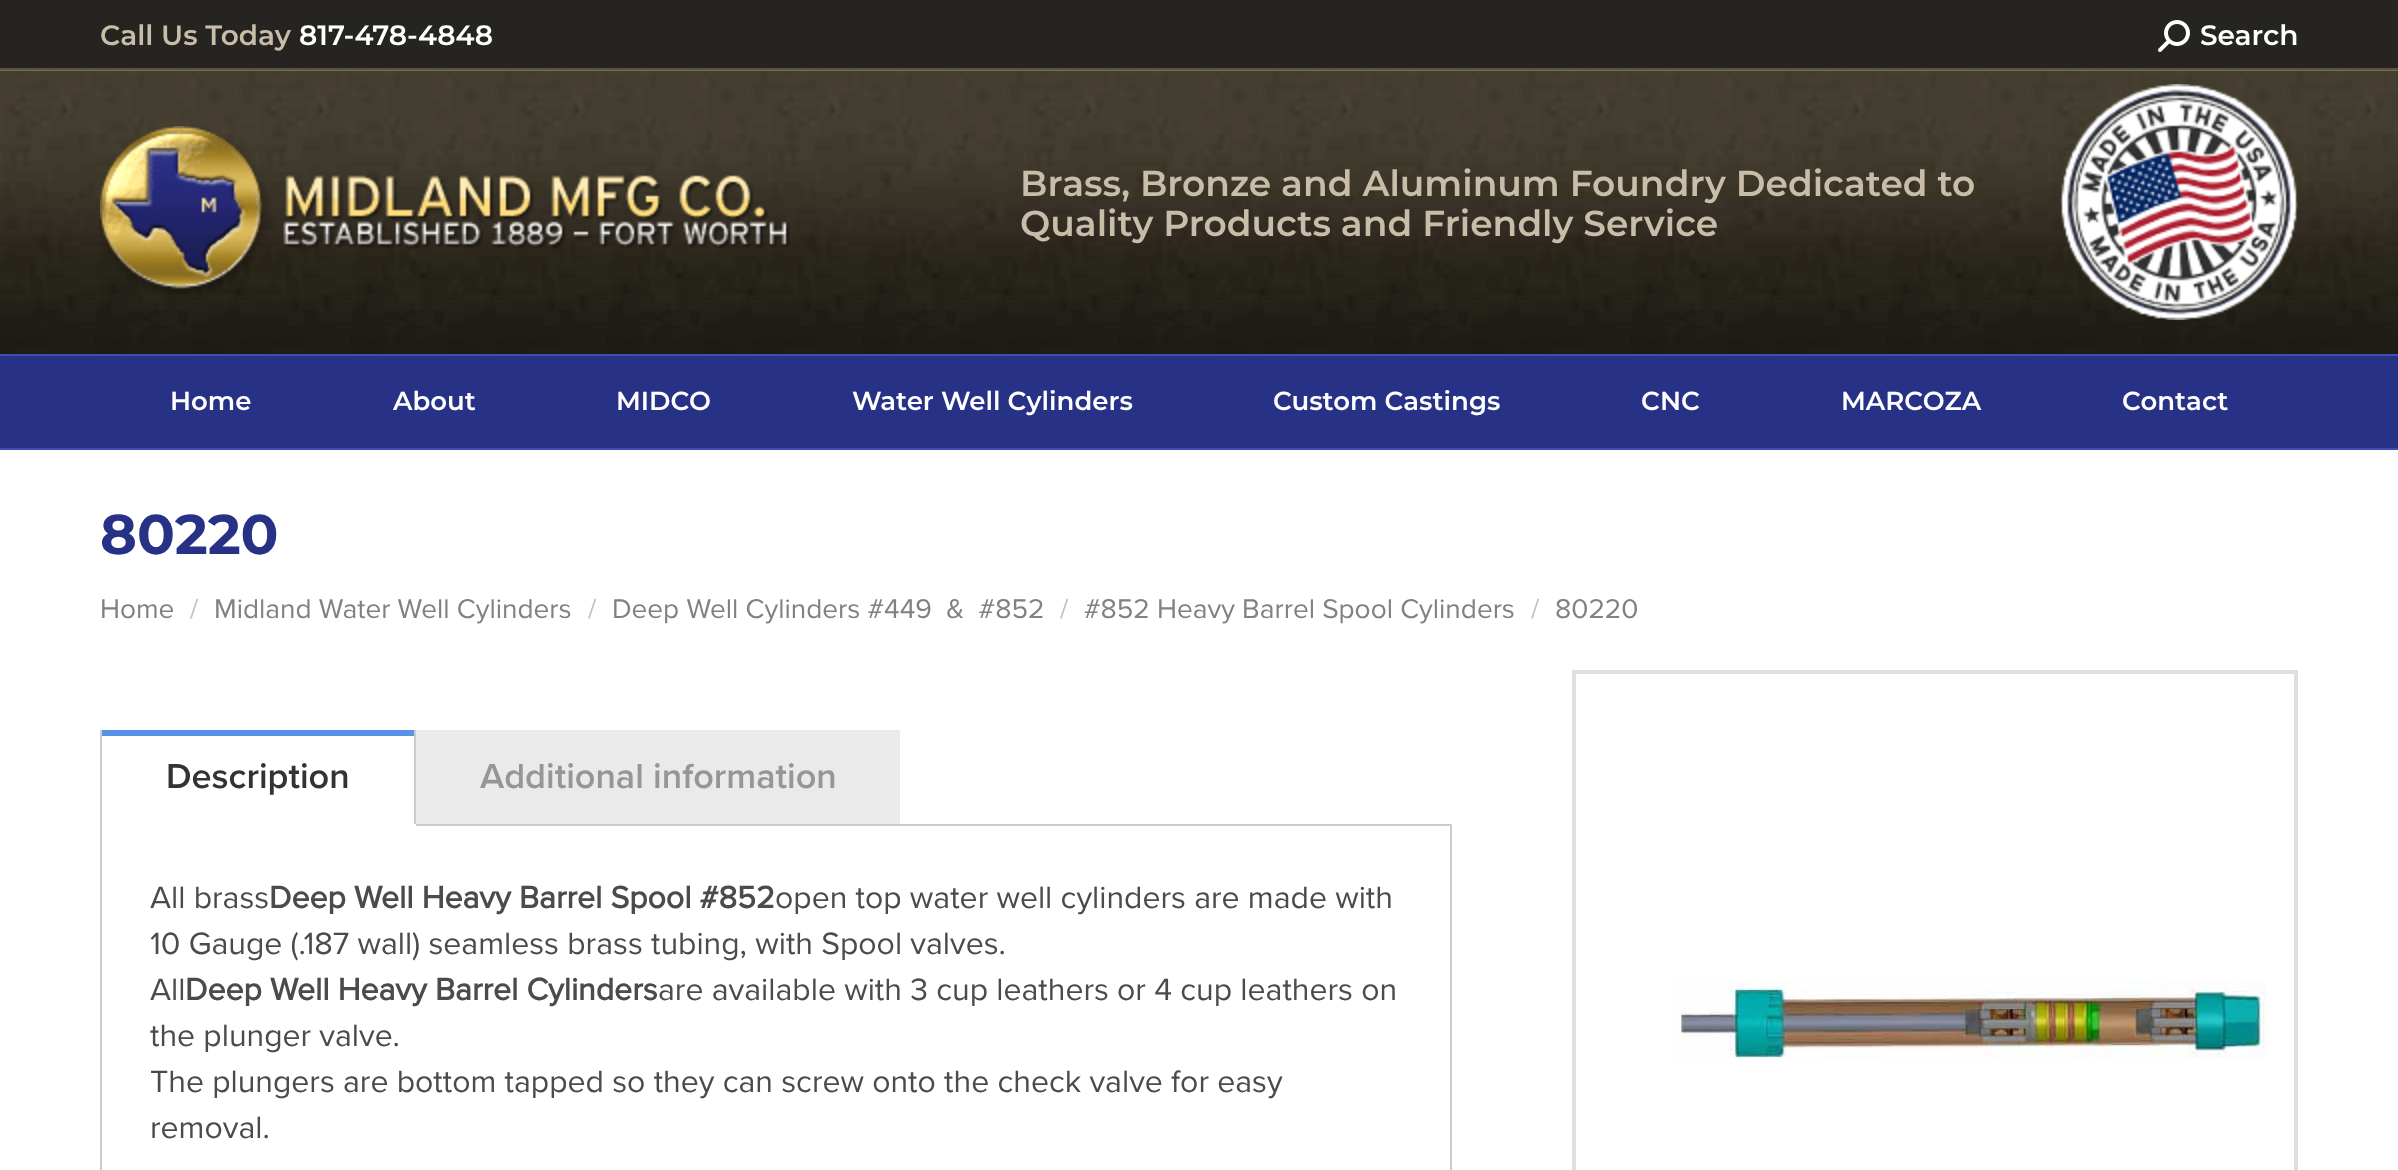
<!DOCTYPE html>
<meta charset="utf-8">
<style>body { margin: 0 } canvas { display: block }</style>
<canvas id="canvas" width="2398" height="1170"></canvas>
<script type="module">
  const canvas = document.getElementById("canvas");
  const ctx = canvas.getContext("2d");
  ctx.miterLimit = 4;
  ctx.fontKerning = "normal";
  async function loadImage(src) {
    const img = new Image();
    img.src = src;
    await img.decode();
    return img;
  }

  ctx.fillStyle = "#ffffff";
  ctx.fillRect(0, 0, 2398, 1170);
  ctx.drawImage(await loadImage("img1.png"), 0, 70, 2398, 284);
  ctx.fillStyle = "#252421";
  ctx.fillRect(0, 0, 2398, 68);
  ctx.font = "600 28px Montserrat";
  ctx.fillStyle = "#c7bda8";
  ctx.fillText("Call Us Today", 100, 45);
  ctx.fillStyle = "#ffffff";
  ctx.fillText("817-478-4848", 299, 45);
  ctx.drawImage(await loadImage("img2.png"), 2158, 20, 32, 32);
  ctx.fillText("Search", 2200, 45);
  ctx.fillStyle = "#5b513c";
  ctx.fillRect(0, 68, 2398, 2);
  ctx.drawImage(await loadImage("img3.png"), 100, 126, 690, 168);
  ctx.font = "600 36px Montserrat";
  ctx.fillStyle = "#c7bda8";
  ctx.fillText("Brass, Bronze and Aluminum Foundry Dedicated to", 1020, 196);
  ctx.fillText("Quality Products and Friendly Service", 1020, 236);
  ctx.drawImage(await loadImage("img4.png"), 2060, 84, 238, 236);
  ctx.fillStyle = "#273186";
  ctx.fillRect(0, 356, 2398, 92);
  ctx.fillStyle = "#414db2";
  ctx.fillRect(0, 354, 2398, 2);
  ctx.font = "600 26px Montserrat";
  ctx.fillStyle = "#ffffff";
  ctx.fillText("Home", 170, 410);
  ctx.fillText("About", 393, 410);
  ctx.fillText("MIDCO", 616, 410);
  ctx.fillText("Water Well Cylinders", 852, 410);
  ctx.fillText("Custom Castings", 1273, 410);
  ctx.fillText("CNC", 1641, 410);
  ctx.fillText("MARCOZA", 1841, 410);
  ctx.fillText("Contact", 2122, 410);
  ctx.fillStyle = "#414db2";
  ctx.fillRect(0, 448, 2398, 2);
  ctx.font = "bold 56px Montserrat";
  ctx.fillStyle = "#273186";
  ctx.fillText("80220", 100, 554);
  ctx.font = "28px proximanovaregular";
  ctx.fillStyle = "#818181";
  ctx.fillText("Home", 100, 618);
  ctx.fillStyle = "#c0c0c0";
  ctx.fillText("/", 190, 618);
  ctx.fillStyle = "#818181";
  ctx.fillText("Midland Water Well Cylinders", 214, 618);
  ctx.fillStyle = "#c0c0c0";
  ctx.fillText("/", 588, 618);
  ctx.fillStyle = "#818181";
  ctx.fillText("Deep Well Cylinders #449  &  #852", 612, 618);
  ctx.fillStyle = "#c0c0c0";
  ctx.fillText("/", 1060, 618);
  ctx.fillStyle = "#818181";
  ctx.fillText("#852 Heavy Barrel Spool Cylinders", 1084, 618);
  ctx.fillStyle = "#c0c0c0";
  ctx.fillText("/", 1531, 618);
  ctx.fillStyle = "#818181";
  ctx.fillText("80220", 1555, 618);
  ctx.strokeStyle = "#cccccc";
  ctx.lineWidth = 2;
  ctx.strokeRect(101, 825, 1350, 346);
  ctx.fillStyle = "#cccccc";
  ctx.fillRect(414, 730, 2, 96);
  ctx.fillStyle = "#ffffff";
  ctx.fillRect(100, 824, 316, 2);
  ctx.fillStyle = "#cccccc";
  ctx.fillRect(100, 730, 2, 96);
  ctx.fillStyle = "#5891e8";
  ctx.fillRect(102, 730, 312, 6);
  ctx.font = "600 36px Proxima Nova";
  ctx.fillStyle = "#333333";
  ctx.fillText("Description", 166, 788);
  ctx.fillStyle = "#eaeaea";
  ctx.fillRect(416, 730, 484, 94);
  ctx.fillStyle = "#969696";
  ctx.fillText("Additional information", 480, 788);
  ctx.font = "32px proximanovaregular";
  ctx.fillStyle = "#4b4b4b";
  ctx.fillText("All brass", 150, 908);
  ctx.font = "bold 32px proximanovaregular";
  ctx.fillText("Deep Well Heavy Barrel Spool #852", 269, 908);
  ctx.font = "32px proximanovaregular";
  ctx.fillText("open top water well cylinders are made with", 775, 908);
  ctx.fillText("10 Gauge (.187 wall) seamless brass tubing, with Spool valves.", 150, 954);
  ctx.fillText("All", 150, 1000);
  ctx.font = "bold 32px proximanovaregular";
  ctx.fillText("Deep Well Heavy Barrel Cylinders", 185, 1000);
  ctx.font = "32px proximanovaregular";
  ctx.fillText("are available with 3 cup leathers or 4 cup leathers on", 658, 1000);
  ctx.fillText("the plunger valve.", 150, 1046);
  ctx.fillText("The plungers are bottom tapped so they can screw onto the check valve for easy", 150, 1092);
  ctx.fillText("removal.", 150, 1138);
  ctx.strokeStyle = "#dfdfdf";
  ctx.strokeRect(1573, 671, 724, 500);
  ctx.strokeRect(1575, 673, 720, 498);
  ctx.drawImage(await loadImage("img5.png"), 1673, 980, 593, 79);
</script>
